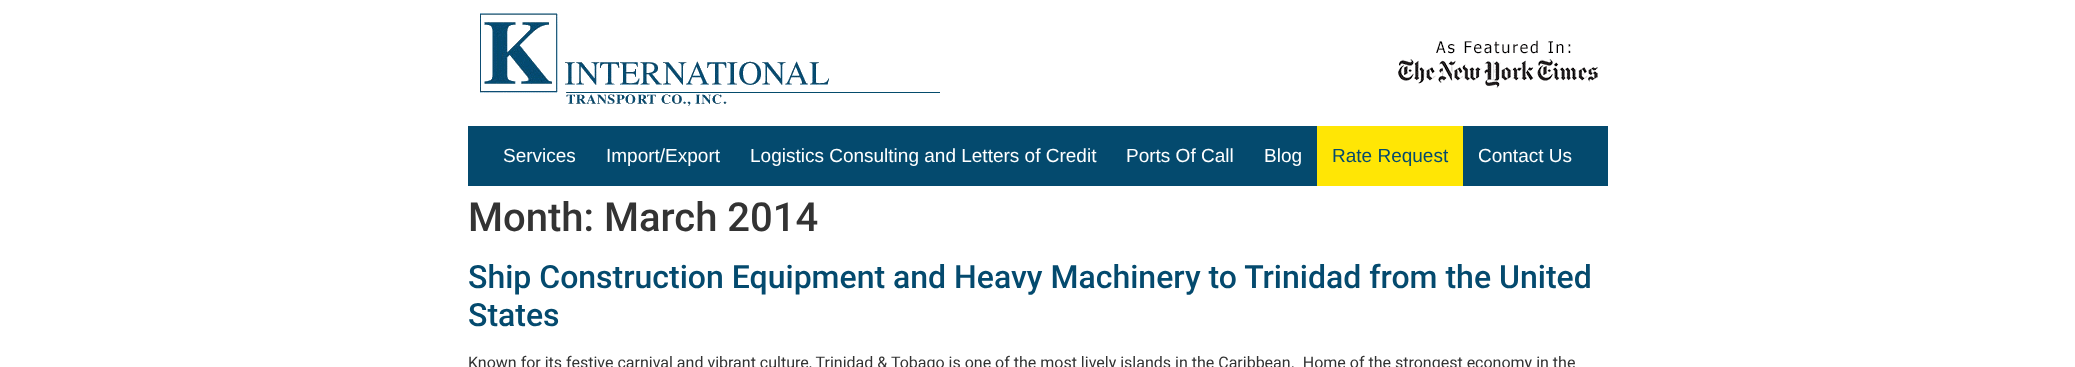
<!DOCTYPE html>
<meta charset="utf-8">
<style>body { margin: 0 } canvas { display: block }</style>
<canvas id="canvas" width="2075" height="367"></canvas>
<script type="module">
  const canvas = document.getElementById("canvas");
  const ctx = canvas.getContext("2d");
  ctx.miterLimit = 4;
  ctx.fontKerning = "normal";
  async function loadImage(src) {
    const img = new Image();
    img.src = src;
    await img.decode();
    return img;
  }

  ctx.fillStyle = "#ffffff";
  ctx.fillRect(0, 0, 2075, 367);
  ctx.drawImage(await loadImage("img1.png"), 480, 13, 460, 93);
  ctx.drawImage(await loadImage("img2.png"), 1398, 40, 200, 48);
  ctx.fillStyle = "#044a6e";
  ctx.fillRect(468, 126, 1140, 60);
  ctx.font = "19px Liberation Sans";
  ctx.fillStyle = "#ffffff";
  ctx.fillText("Services", 503, 162);
  ctx.fillText("Import/Export", 606, 162);
  ctx.fillText("Logistics Consulting and Letters of Credit", 750, 162);
  ctx.fillText("Ports Of Call", 1126, 162);
  ctx.fillText("Blog", 1264, 162);
  ctx.fillStyle = "#ffe605";
  ctx.fillRect(1317, 126, 146, 60);
  ctx.fillStyle = "#044a6e";
  ctx.fillText("Rate Request", 1332, 162);
  ctx.fillStyle = "#ffffff";
  ctx.fillText("Contact Us", 1478, 162);
  ctx.font = "500 40px Roboto";
  ctx.fillStyle = "#333333";
  ctx.fillText("Month: March 2014", 468, 231);
  ctx.font = "500 32px Roboto";
  ctx.fillStyle = "#044a6e";
  ctx.fillText("Ship Construction Equipment and Heavy Machinery to Trinidad from the United", 468, 288);
  ctx.fillText("States", 468, 326);
  ctx.font = "16px Roboto";
  ctx.fillStyle = "#333333";
  ctx.fillText("Known for its festive carnival and vibrant culture, Trinidad & Tobago is one of the most lively islands in the Caribbean.  Home of the strongest economy in the", 468, 368);
</script>
